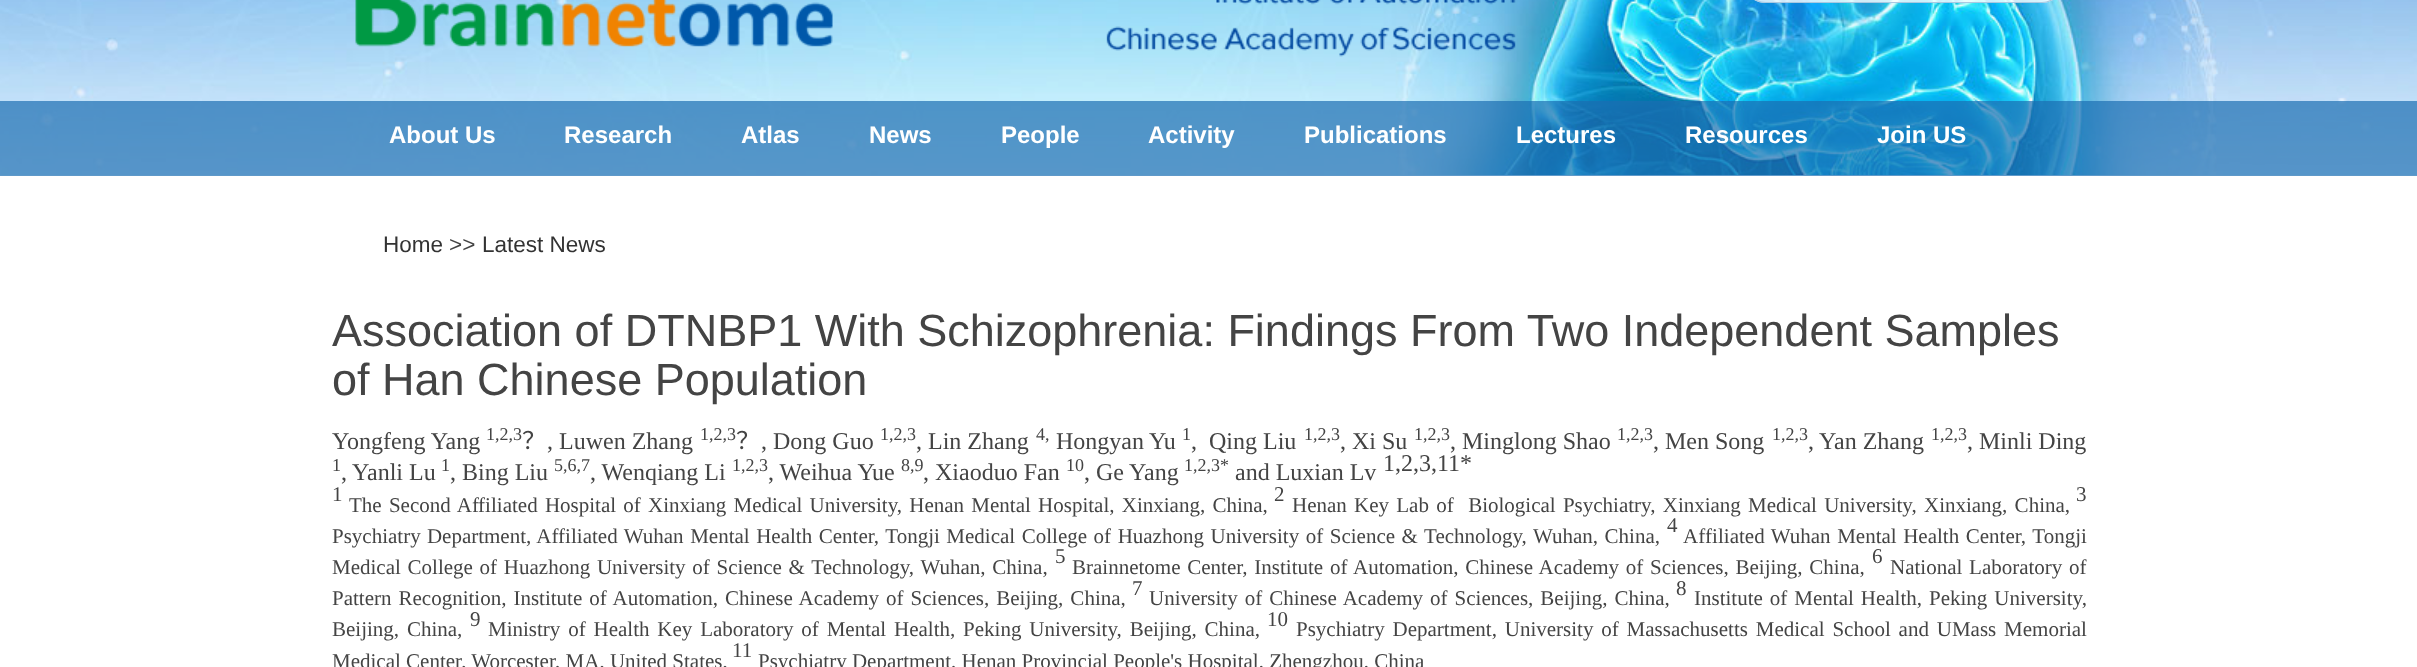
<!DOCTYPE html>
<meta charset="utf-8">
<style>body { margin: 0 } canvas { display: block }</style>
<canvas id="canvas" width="2417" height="667"></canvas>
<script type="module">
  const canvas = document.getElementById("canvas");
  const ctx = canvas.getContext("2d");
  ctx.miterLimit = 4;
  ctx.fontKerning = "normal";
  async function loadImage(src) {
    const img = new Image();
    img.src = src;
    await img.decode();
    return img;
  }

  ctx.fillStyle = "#ffffff";
  ctx.fillRect(0, 0, 2417, 667);
  ctx.drawImage(await loadImage("img1.png"), 0, 0, 2417, 175);
  ctx.fillStyle = "rgba(255, 255, 255, 0.8)";
  ctx.beginPath();
  ctx.moveTo(1765.5, -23);
  ctx.lineTo(2013, -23);
  ctx.lineTo(2013, 3);
  ctx.lineTo(1765.5, 3);
  ctx.bezierCurveTo(1753, 3, 1743, -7, 1743, -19.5);
  ctx.lineTo(1743, -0.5);
  ctx.bezierCurveTo(1743, -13, 1753, -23, 1765.5, -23);
  ctx.closePath();
  ctx.fill();
  ctx.fillStyle = "#aac8e1";
  ctx.beginPath();
  ctx.moveTo(1766, -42);
  ctx.lineTo(2013, -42);
  ctx.lineTo(2013, 3);
  ctx.lineTo(1766, 3);
  ctx.bezierCurveTo(1753, 3, 1743, -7, 1743, -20);
  ctx.bezierCurveTo(1743, -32, 1753, -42, 1766, -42);
  ctx.closePath();
  ctx.moveTo(1766, -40);
  ctx.lineTo(2013, -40);
  ctx.lineTo(2013, 2);
  ctx.lineTo(1766, 2);
  ctx.bezierCurveTo(1754, 2, 1744, -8, 1744, -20);
  ctx.bezierCurveTo(1744, -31, 1754, -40, 1766, -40);
  ctx.closePath();
  ctx.fill("evenodd");
  ctx.fillStyle = "rgba(255, 255, 255, 0.8)";
  ctx.beginPath();
  ctx.moveTo(2013, -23);
  ctx.lineTo(2041.5, -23);
  ctx.bezierCurveTo(2054, -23, 2064, -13, 2064, -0.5);
  ctx.lineTo(2064, -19.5);
  ctx.bezierCurveTo(2064, -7, 2054, 3, 2041.5, 3);
  ctx.lineTo(2013, 3);
  ctx.closePath();
  ctx.fill();
  ctx.fillStyle = "#aac8e1";
  ctx.beginPath();
  ctx.moveTo(2013, -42);
  ctx.lineTo(2042, -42);
  ctx.bezierCurveTo(2054, -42, 2064, -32, 2064, -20);
  ctx.bezierCurveTo(2064, -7, 2054, 3, 2042, 3);
  ctx.lineTo(2013, 3);
  ctx.closePath();
  ctx.moveTo(2013, -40);
  ctx.lineTo(2042, -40);
  ctx.bezierCurveTo(2053, -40, 2062, -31, 2062, -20);
  ctx.bezierCurveTo(2062, -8, 2053, 2, 2042, 2);
  ctx.lineTo(2013, 2);
  ctx.closePath();
  ctx.fill("evenodd");
  ctx.drawImage(await loadImage("img2.png"), 355, 0, 1161, 57);
  ctx.fillStyle = "rgba(27, 109, 178, 0.7)";
  ctx.fillRect(0, 101, 2417, 75);
  ctx.font = "bold 24px Liberation Sans";
  ctx.fillStyle = "#ffffff";
  ctx.fillText("About Us", 389, 143);
  ctx.fillText("Research", 564, 143);
  ctx.fillText("Atlas", 741, 143);
  ctx.fillText("News", 869, 143);
  ctx.fillText("People", 1001, 143);
  ctx.fillText("Activity", 1148, 143);
  ctx.fillText("Publications", 1304, 143);
  ctx.fillText("Lectures", 1516, 143);
  ctx.fillText("Resources", 1685, 143);
  ctx.fillText("Join US", 1877, 143);
  ctx.font = "22.5px Liberation Sans";
  ctx.fillStyle = "#333333";
  ctx.fillText("Home", 383, 252);
  ctx.fillStyle = "#444444";
  ctx.fillText(">>", 449, 252);
  ctx.fillStyle = "#333333";
  ctx.fillText("Latest News", 482, 252);
  ctx.font = "45px Liberation Sans";
  ctx.fillStyle = "#444444";
  ctx.fillText("Association of DTNBP1 With Schizophrenia: Findings From Two Independent Samples", 332, 346);
  ctx.fillText("of Han Chinese Population", 332, 395);
  ctx.font = "24px Liberation Serif";
  ctx.fillText("Yongfeng Yang", 332, 449);
  ctx.font = "18px Liberation Serif";
  ctx.fillText("1,2,3", 486, 440);
  ctx.font = "24px Noto Sans CJK SC";
  ctx.fillText("？", 522, 449);
  ctx.font = "24px Liberation Serif";
  ctx.fillText(", Luwen Zhang", 547, 449);
  ctx.font = "18px Liberation Serif";
  ctx.fillText("1,2,3", 700, 440);
  ctx.font = "24px Noto Sans CJK SC";
  ctx.fillText("？", 736, 449);
  ctx.font = "24px Liberation Serif";
  ctx.fillText(", Dong Guo", 761, 449);
  ctx.font = "18px Liberation Serif";
  ctx.fillText("1,2,3", 880, 440);
  ctx.font = "24px Liberation Serif";
  ctx.fillText(", Lin Zhang", 916, 449);
  ctx.font = "18px Liberation Serif";
  ctx.fillText("4,", 1036, 440);
  ctx.font = "24px Liberation Serif";
  ctx.fillText("Hongyan Yu", 1056, 449);
  ctx.font = "18px Liberation Serif";
  ctx.fillText("1", 1182, 440);
  ctx.font = "24px Liberation Serif";
  ctx.fillText(",  Qing Liu", 1191, 449);
  ctx.font = "18px Liberation Serif";
  ctx.fillText("1,2,3", 1304, 440);
  ctx.font = "24px Liberation Serif";
  ctx.fillText(", Xi Su", 1340, 449);
  ctx.font = "18px Liberation Serif";
  ctx.fillText("1,2,3", 1414, 440);
  ctx.font = "24px Liberation Serif";
  ctx.fillText(", Minglong Shao", 1450, 449);
  ctx.font = "18px Liberation Serif";
  ctx.fillText("1,2,3", 1617, 440);
  ctx.font = "24px Liberation Serif";
  ctx.fillText(", Men Song", 1653, 449);
  ctx.font = "18px Liberation Serif";
  ctx.fillText("1,2,3", 1772, 440);
  ctx.font = "24px Liberation Serif";
  ctx.fillText(", Yan Zhang", 1808, 449);
  ctx.font = "18px Liberation Serif";
  ctx.fillText("1,2,3", 1931, 440);
  ctx.font = "24px Liberation Serif";
  ctx.fillText(", Minli Ding", 1967, 449);
  ctx.font = "18px Liberation Serif";
  ctx.fillText("1", 332, 471);
  ctx.font = "24px Liberation Serif";
  ctx.fillText(", Yanli Lu", 341, 480);
  ctx.font = "18px Liberation Serif";
  ctx.fillText("1", 441, 471);
  ctx.font = "24px Liberation Serif";
  ctx.fillText(", Bing Liu", 450, 480);
  ctx.font = "18px Liberation Serif";
  ctx.fillText("5,6,7", 554, 471);
  ctx.font = "24px Liberation Serif";
  ctx.fillText(", Wenqiang Li", 590, 480);
  ctx.font = "18px Liberation Serif";
  ctx.fillText("1,2,3", 732, 471);
  ctx.font = "24px Liberation Serif";
  ctx.fillText(", Weihua Yue", 768, 480);
  ctx.font = "18px Liberation Serif";
  ctx.fillText("8,9", 901, 471);
  ctx.font = "24px Liberation Serif";
  ctx.fillText(", Xiaoduo Fan", 923, 480);
  ctx.font = "18px Liberation Serif";
  ctx.fillText("10", 1066, 471);
  ctx.font = "24px Liberation Serif";
  ctx.fillText(", Ge Yang", 1084, 480);
  ctx.font = "18px Liberation Serif";
  ctx.fillText("1,2,3*", 1184, 471);
  ctx.font = "24px Liberation Serif";
  ctx.fillText("and Luxian Lv", 1235, 480);
  ctx.fillText("1,2,3,11*", 1383, 471);
  ctx.font = "21px Liberation Serif";
  ctx.fillText("1", 332, 501);
  ctx.fillText("2", 1274, 501);
  ctx.fillText("3", 2076, 501);
  ctx.wordSpacing = "2px";
  ctx.fillText("The Second Af", 349, 512);
  ctx.wordSpacing = "0px";
  ctx.fillText("fi", 478, 512);
  ctx.wordSpacing = "2px";
  ctx.fillText("liated Hospital of Xinxiang Medical University, Henan Mental Hospital, Xinxiang, China,", 491, 512);
  ctx.fillText("Henan Key Lab of  Biological Psychiatry, Xinxiang Medical University, Xinxiang, China,", 1292, 512);
  ctx.wordSpacing = "0px";
  ctx.fillText("4", 1667, 532);
  ctx.wordSpacing = "1px";
  ctx.fillText("Psychiatry Department, Af", 332, 543);
  ctx.wordSpacing = "0px";
  ctx.fillText("fi", 558, 543);
  ctx.wordSpacing = "1.3px";
  ctx.fillText("liated Wuhan Mental Health Center, Tongji Medical College of Huazhong University of Science & Technology, Wuhan, China,", 571, 543);
  ctx.wordSpacing = "0px";
  ctx.fillText("Af", 1683, 543);
  ctx.fillText("fi", 1705, 543);
  ctx.wordSpacing = "1.3px";
  ctx.fillText("liated Wuhan Mental Health Center, Tongji", 1718, 543);
  ctx.wordSpacing = "0px";
  ctx.fillText("5", 1055, 563);
  ctx.fillText("6", 1872, 563);
  ctx.wordSpacing = "1.5px";
  ctx.fillText("Medical College of Huazhong University of Science & Technology, Wuhan, China,", 332, 574);
  ctx.fillText("Brainnetome Center, Institute of Automation, Chinese Academy of Sciences, Beijing, China,", 1072, 574);
  ctx.fillText("National Laboratory of", 1890, 574);
  ctx.wordSpacing = "0px";
  ctx.fillText("7", 1132, 595);
  ctx.fillText("8", 1676, 595);
  ctx.wordSpacing = "1.75px";
  ctx.fillText("Pattern Recognition, Institute of Automation, Chinese Academy of Sciences, Beijing, China,", 332, 605);
  ctx.fillText("University of Chinese Academy of Sciences, Beijing, China,", 1149, 605);
  ctx.fillText("Institute of Mental Health, Peking University,", 1694, 605);
  ctx.wordSpacing = "0px";
  ctx.fillText("9", 470, 626);
  ctx.fillText("10", 1267, 626);
  ctx.wordSpacing = "2.6px";
  ctx.fillText("Beijing, China,", 332, 636);
  ctx.fillText("Ministry of Health Key Laboratory of Mental Health, Peking University, Beijing, China,", 488, 636);
  ctx.fillText("Psychiatry Department, University of Massachusetts Medical School and UMass Memorial", 1296, 636);
  ctx.wordSpacing = "0px";
  ctx.fillText("11", 732, 657);
  ctx.fillText("Medical Center, Worcester, MA, United States,", 332, 668);
  ctx.fillText("Psychiatry Department, Henan Provincial People's Hospital, Zhengzhou, China", 758, 668);
</script>
